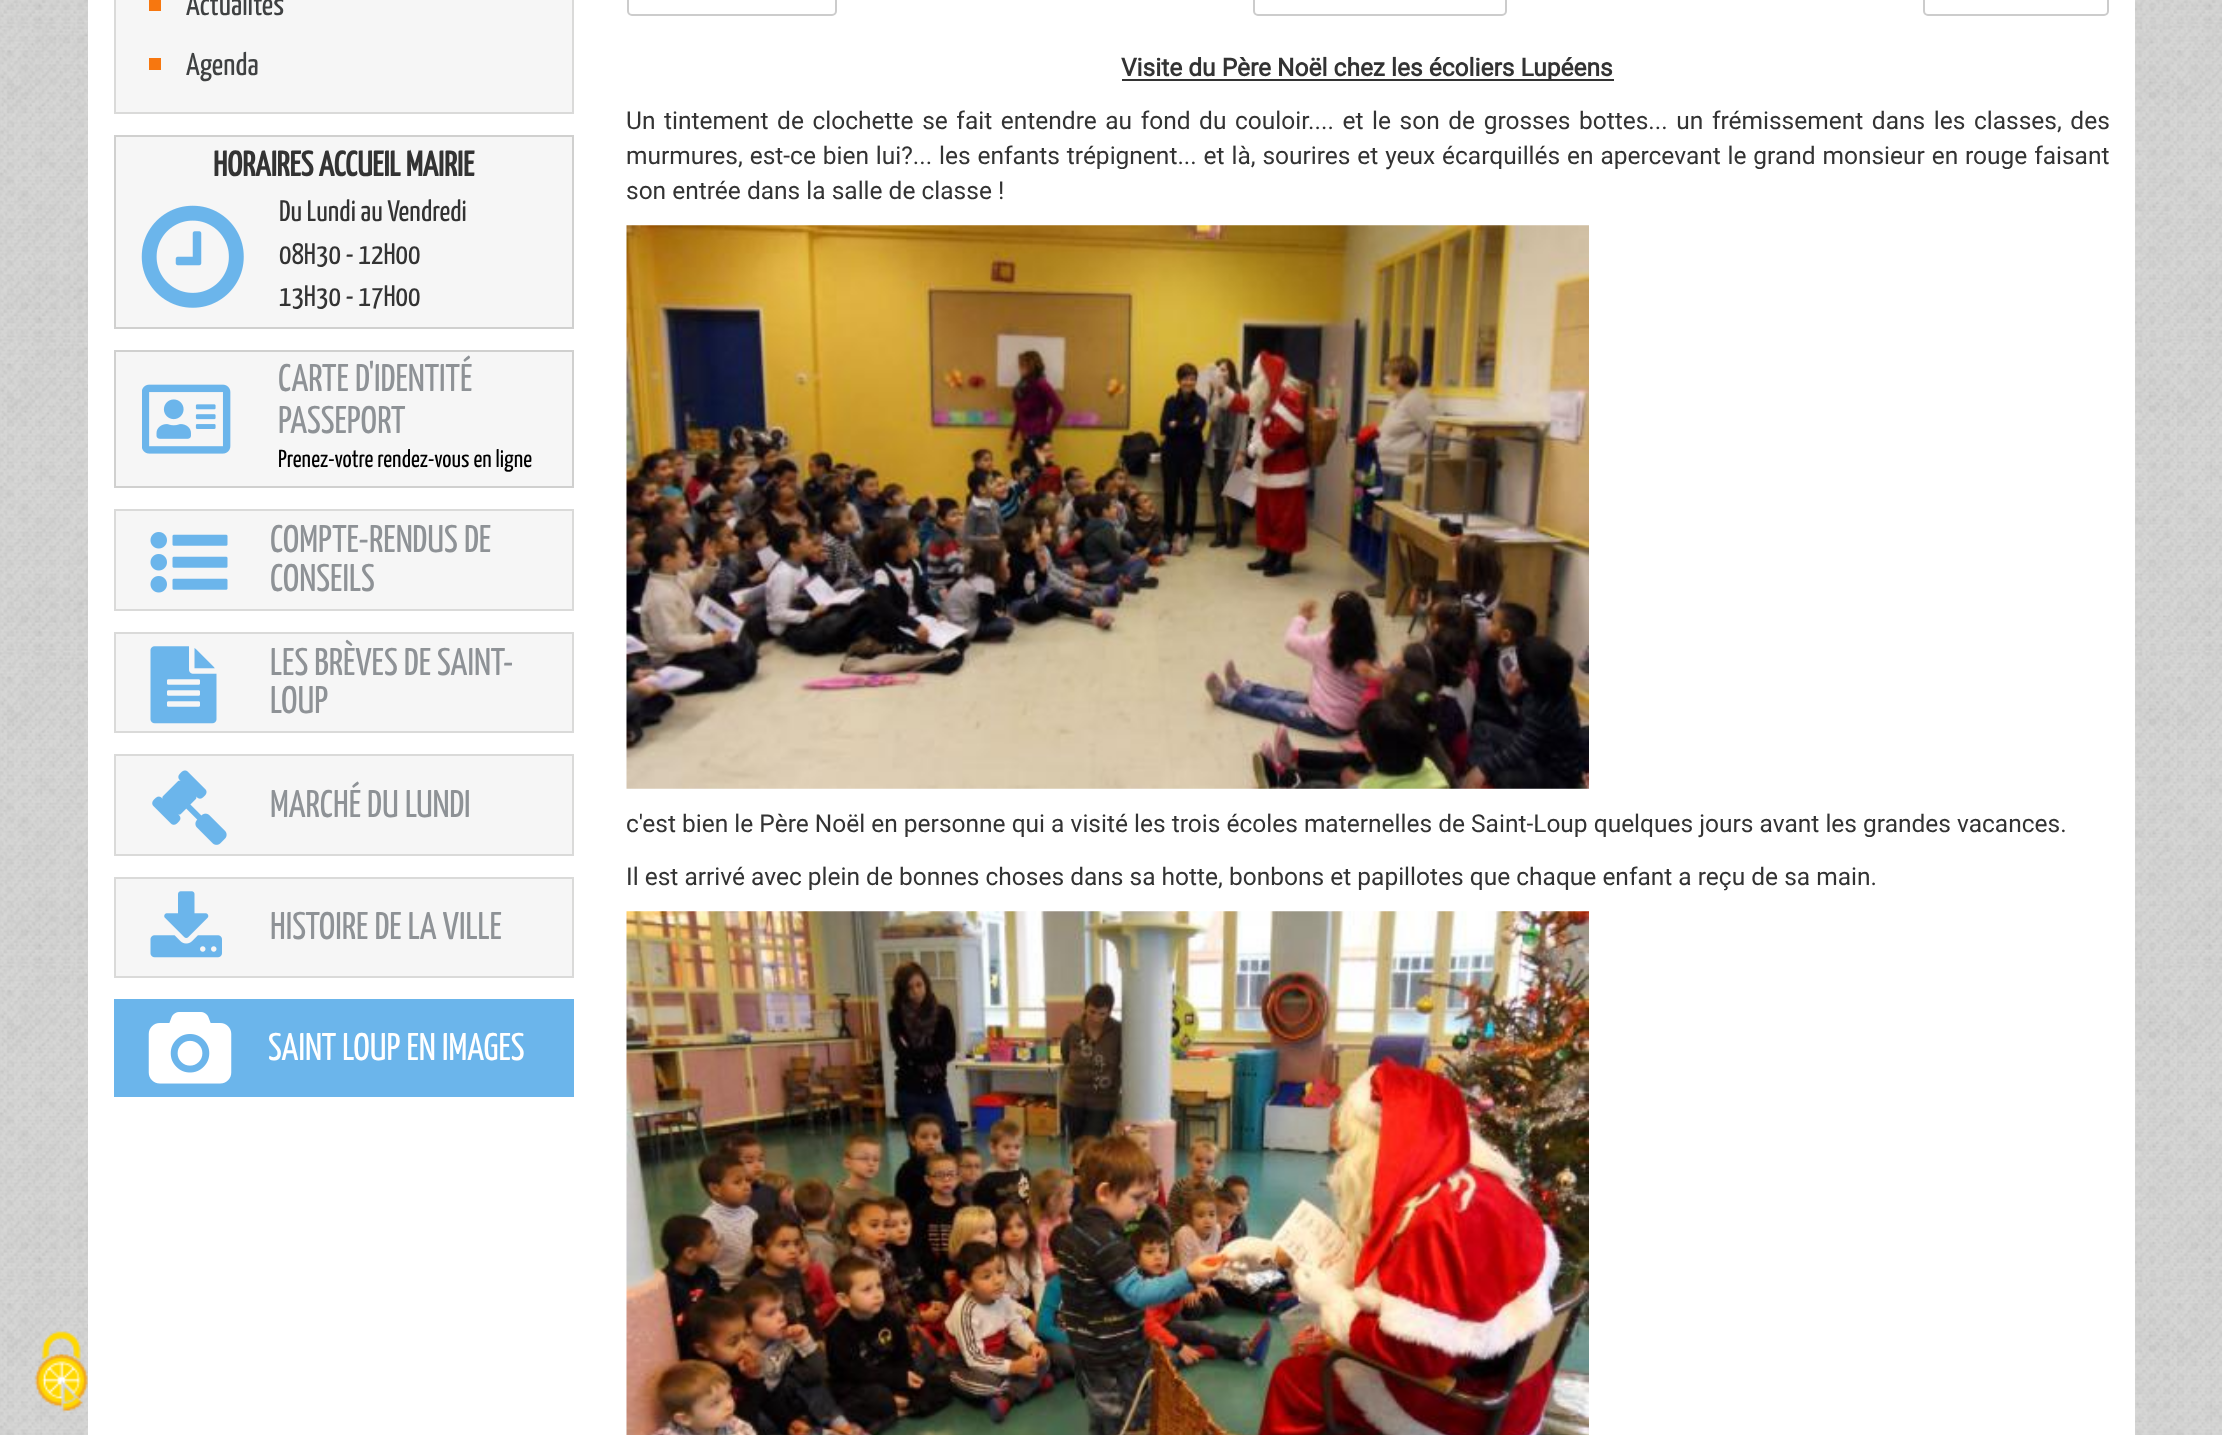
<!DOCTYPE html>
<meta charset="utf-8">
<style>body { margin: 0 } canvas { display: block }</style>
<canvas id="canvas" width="2222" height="1435"></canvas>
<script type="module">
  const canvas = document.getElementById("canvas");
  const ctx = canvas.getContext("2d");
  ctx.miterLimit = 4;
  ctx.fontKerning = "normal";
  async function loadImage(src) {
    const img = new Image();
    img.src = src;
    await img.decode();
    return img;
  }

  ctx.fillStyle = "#ffffff";
  ctx.fillRect(0, 0, 2222, 1435);
  ctx.drawImage(await loadImage("img1.png"), 0, 0, 2222, 1435);
  ctx.fillRect(88, 0, 2047, 1435);
  ctx.fillStyle = "#f6f6f6";
  ctx.beginPath();
  ctx.rect(115, -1, 458, 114);
  ctx.fill();
  ctx.strokeStyle = "#dadad9";
  ctx.lineWidth = 2;
  ctx.stroke();
  ctx.fillStyle = "#f7770f";
  ctx.fillRect(149, 0, 12, 11);
  ctx.font = "200 31.5px Yanone Kaffeesatz";
  ctx.fillStyle = "#3f4142";
  ctx.fillText("Actualités", 186, 15);
  ctx.fillStyle = "#f7770f";
  ctx.fillRect(149, 58, 12, 12);
  ctx.fillStyle = "#3f4142";
  ctx.fillText("Agenda", 186, 75);
  ctx.fillStyle = "#f6f6f6";
  ctx.beginPath();
  ctx.rect(115, 136, 458, 192);
  ctx.fill();
  ctx.strokeStyle = "#d0d0cf";
  ctx.stroke();
  ctx.font = "bold 35px Yanone Kaffeesatz";
  ctx.fillStyle = "#333333";
  ctx.fillText("HORAIRES ACCUEIL MAIRIE", 213, 176);
  ctx.drawImage(await loadImage("img2.png"), 141, 205, 103, 103);
  ctx.font = "200 29.75px Yanone Kaffeesatz";
  ctx.fillText("Du Lundi au Vendredi", 279, 221);
  ctx.fillText("08H30 - 12H00", 279, 264);
  ctx.fillText("13H30 - 17H00", 279, 306);
  ctx.fillStyle = "#f6f6f6";
  ctx.beginPath();
  ctx.rect(115, 351, 458, 136);
  ctx.fill();
  ctx.stroke();
  ctx.drawImage(await loadImage("img3.png"), 142, 384, 89, 70);
  ctx.font = "200 38.5px Yanone Kaffeesatz";
  ctx.fillStyle = "#8e9296";
  ctx.fillText("CARTE D'IDENTITÉ", 278, 391);
  ctx.fillText("PASSEPORT", 278, 433);
  ctx.font = "200 24.5px Yanone Kaffeesatz";
  ctx.fillStyle = "#000000";
  ctx.fillText("Prenez-votre rendez-vous en ligne", 278, 467);
  ctx.fillStyle = "#f6f6f6";
  ctx.beginPath();
  ctx.rect(115, 510, 458, 100);
  ctx.fill();
  ctx.strokeStyle = "#dadad9";
  ctx.stroke();
  ctx.drawImage(await loadImage("img4.png"), 150, 532, 78, 61);
  ctx.font = "200 38.5px Yanone Kaffeesatz";
  ctx.fillStyle = "#8e9296";
  ctx.fillText("COMPTE-RENDUS DE", 270, 552);
  ctx.fillText("CONSEILS", 270, 591);
  ctx.fillStyle = "#f6f6f6";
  ctx.beginPath();
  ctx.rect(115, 633, 458, 99);
  ctx.fill();
  ctx.stroke();
  ctx.drawImage(await loadImage("img5.png"), 150, 646, 67, 78);
  ctx.fillStyle = "#8e9296";
  ctx.fillText("LES BRÈVES DE SAINT-", 270, 675);
  ctx.fillText("LOUP", 270, 713);
  ctx.fillStyle = "#f6f6f6";
  ctx.beginPath();
  ctx.rect(115, 755, 458, 100);
  ctx.fill();
  ctx.stroke();
  ctx.drawImage(await loadImage("img6.png"), 152, 770, 75, 75);
  ctx.fillStyle = "#8e9296";
  ctx.fillText("MARCHÉ DU LUNDI", 270, 817);
  ctx.fillStyle = "#f6f6f6";
  ctx.beginPath();
  ctx.rect(115, 878, 458, 99);
  ctx.fill();
  ctx.stroke();
  ctx.drawImage(await loadImage("img7.png"), 150, 891, 72, 67);
  ctx.fillStyle = "#8e9296";
  ctx.fillText("HISTOIRE DE LA VILLE", 270, 939);
  ctx.fillStyle = "#6bb5eb";
  ctx.fillRect(114, 999, 460, 98);
  ctx.drawImage(await loadImage("img8.png"), 148, 1012, 84, 72);
  ctx.fillStyle = "#ffffff";
  ctx.fillText("SAINT LOUP EN IMAGES", 268, 1060);
  ctx.beginPath();
  ctx.roundRect(628, -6, 208, 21, 4);
  ctx.strokeStyle = "#cccccc";
  ctx.stroke();
  ctx.beginPath();
  ctx.roundRect(1254, -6, 252, 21, 4);
  ctx.stroke();
  ctx.beginPath();
  ctx.roundRect(1924, -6, 184, 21, 4);
  ctx.stroke();
  ctx.fillStyle = "#333333";
  ctx.fillRect(1122, 79, 492, 2);
  ctx.font = "bold 24.5px Roboto";
  ctx.fillText("Visite du Père Noël chez les écoliers Lupéens", 1121, 76);
  ctx.wordSpacing = "2.5px";
  ctx.font = "24.5px Roboto";
  ctx.fillText("Un tintement de clochette se fait entendre au fond du couloir.... et le son de grosses bottes... un frémissement dans les classes, des", 626, 129);
  ctx.wordSpacing = "0.75px";
  ctx.fillText("murmures, est-ce bien lui?... les enfants trépignent... et là, sourires et yeux écarquillés en apercevant le grand monsieur en rouge faisant", 626, 164);
  ctx.wordSpacing = "0px";
  ctx.fillText("son entrée dans la salle de classe !", 626, 199);
  ctx.drawImage(await loadImage("img9.png"), 626, 225, 963, 564);
  ctx.fillText("c'est bien le Père Noël en personne qui a visité les trois écoles maternelles de Saint-Loup quelques jours avant les grandes vacances.", 626, 832);
  ctx.fillText("Il est arrivé avec plein de bonnes choses dans sa hotte, bonbons et papillotes que chaque enfant a reçu de sa main.", 626, 885);
  ctx.drawImage(await loadImage("img10.png"), 626, 911, 963, 524);
  ctx.drawImage(await loadImage("img11.png"), 34, 1331, 54, 82);
</script>
